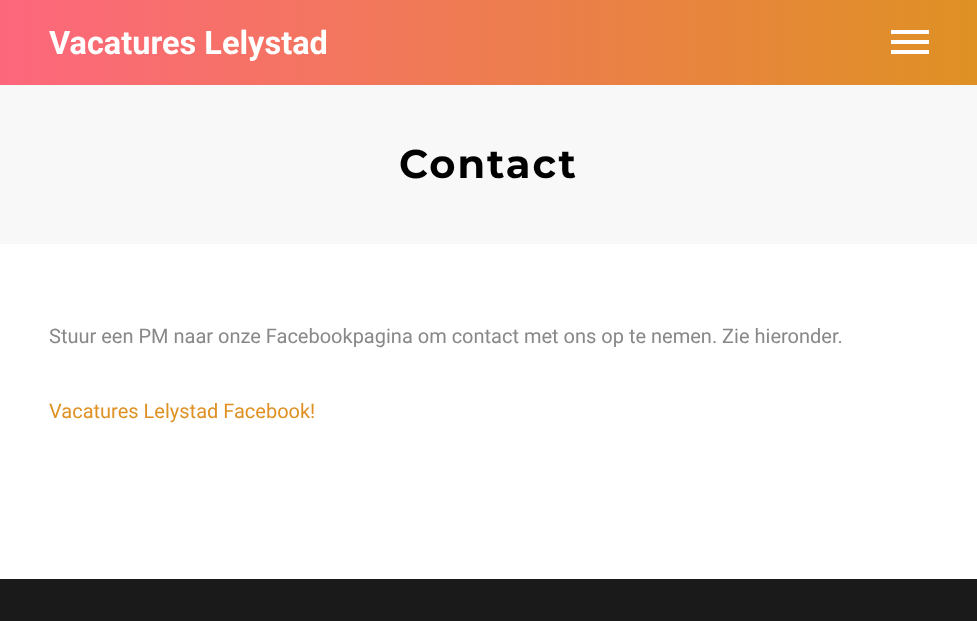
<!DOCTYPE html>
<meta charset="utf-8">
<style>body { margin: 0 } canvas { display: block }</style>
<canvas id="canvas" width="977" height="621"></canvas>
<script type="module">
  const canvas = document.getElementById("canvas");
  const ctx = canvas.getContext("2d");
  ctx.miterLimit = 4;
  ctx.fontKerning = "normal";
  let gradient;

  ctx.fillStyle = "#ffffff";
  ctx.fillRect(0, 0, 977, 621);
  gradient = ctx.createLinearGradient(0, 43, 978, 42);
  gradient.addColorStop(0, "#fd677d");
  gradient.addColorStop(1, "#df9124");
  ctx.fillStyle = gradient;
  ctx.fillRect(0, 0, 977, 85);
  ctx.font = "bold 32.5px Roboto";
  ctx.fillStyle = "#ffffff";
  ctx.fillText("Vacatures Lelystad", 49, 54);
  ctx.fillRect(891, 30, 38, 4);
  ctx.fillRect(891, 40, 38, 4);
  ctx.fillRect(891, 50, 38, 4);
  ctx.fillStyle = "#f8f8f8";
  ctx.fillRect(0, 85, 977, 159);
  ctx.letterSpacing = "2px";
  ctx.font = "100 40px Montserrat";
  ctx.fillStyle = "#000000";
  ctx.fillText("Contact", 399, 178);
  ctx.letterSpacing = "0px";
  ctx.font = "20px Roboto";
  ctx.fillStyle = "#888888";
  ctx.fillText("Stuur een PM naar onze Facebookpagina om contact met ons op te nemen. Zie hieronder.", 49, 343);
  ctx.fillStyle = "#df9124";
  ctx.fillText("Vacatures Lelystad Facebook!", 49, 418);
  ctx.fillStyle = "#1a1a1a";
  ctx.fillRect(0, 579, 977, 42);
</script>
